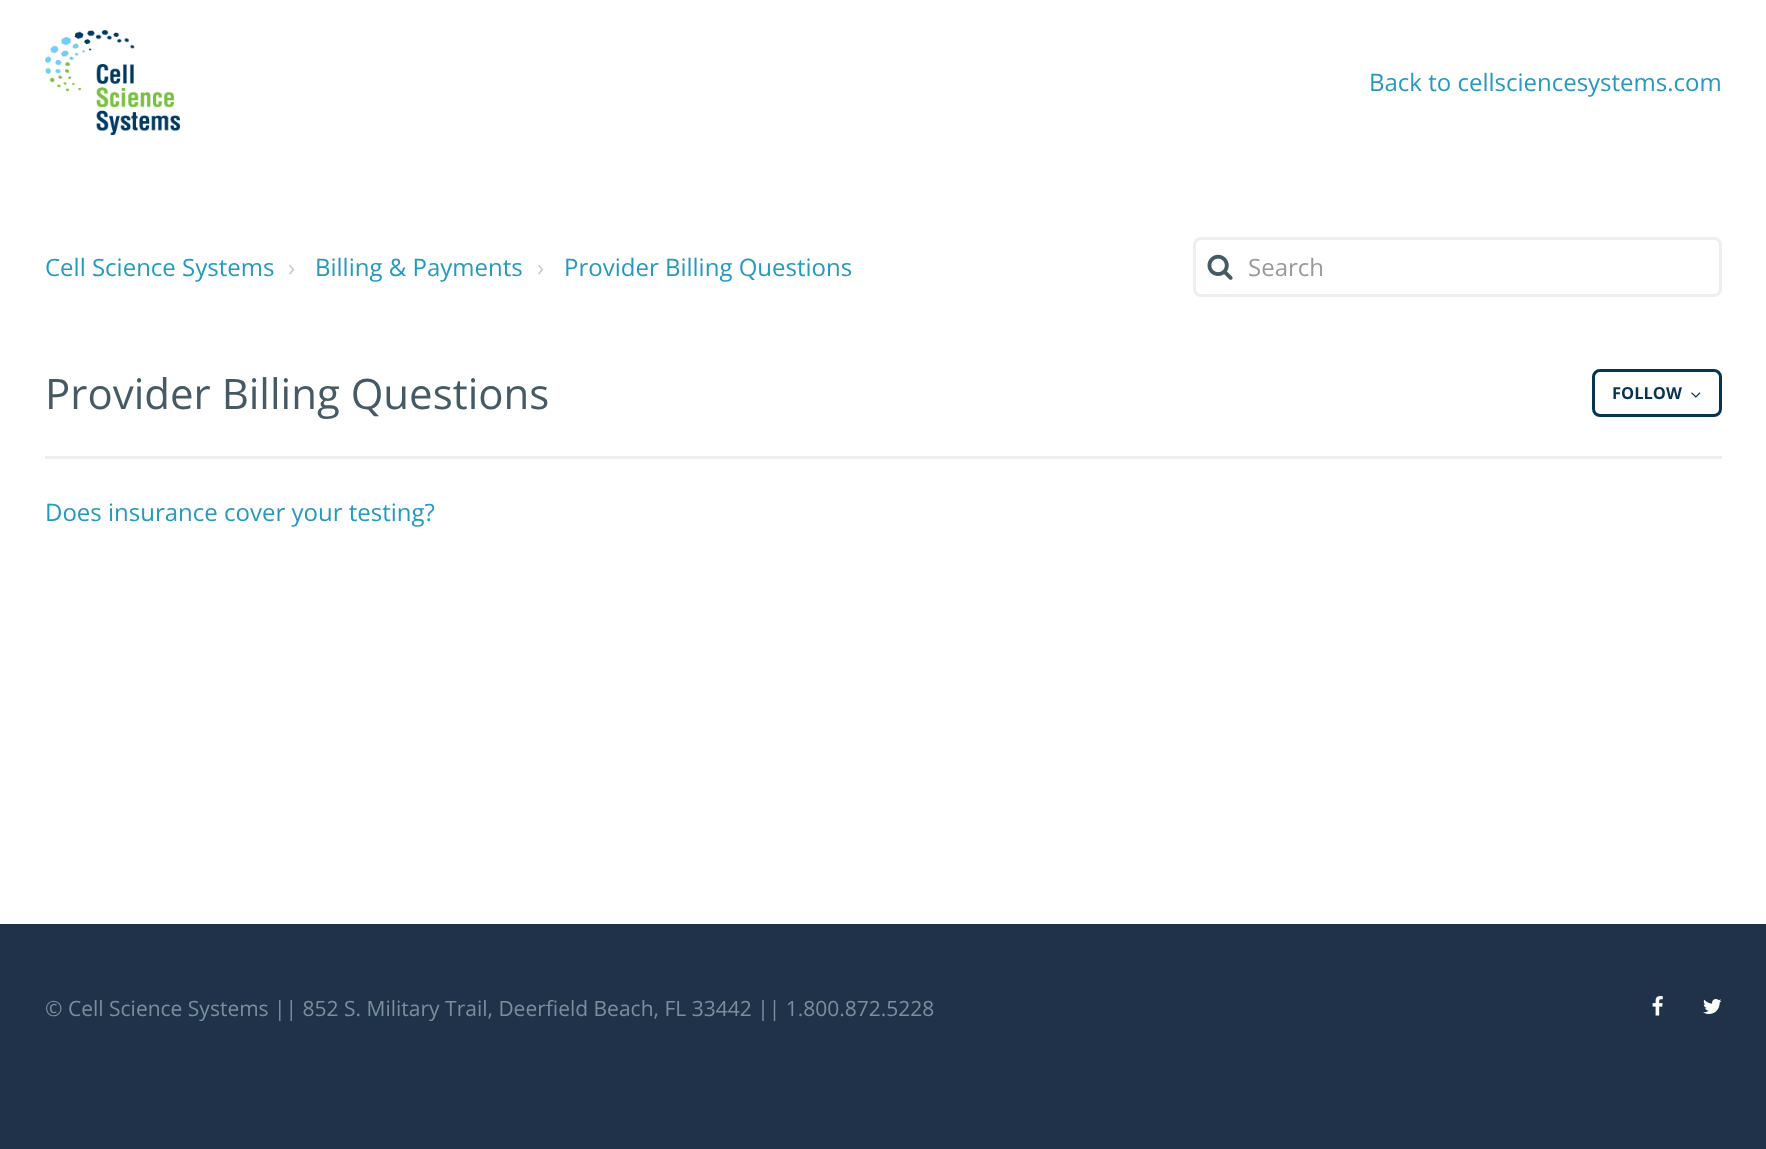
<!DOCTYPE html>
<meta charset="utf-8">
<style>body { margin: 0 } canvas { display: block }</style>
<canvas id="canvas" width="1766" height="1149"></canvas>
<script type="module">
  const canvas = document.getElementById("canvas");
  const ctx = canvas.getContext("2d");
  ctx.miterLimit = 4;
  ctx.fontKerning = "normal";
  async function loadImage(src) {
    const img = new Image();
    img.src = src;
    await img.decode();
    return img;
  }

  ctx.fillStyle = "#ffffff";
  ctx.fillRect(0, 0, 1766, 1149);
  ctx.drawImage(await loadImage("img1.png"), 45, 30, 135, 105);
  ctx.font = "24px Open Sans";
  ctx.fillStyle = "#2599bf";
  ctx.fillText("Back to cellsciencesystems.com", 1369, 91);
  ctx.fillText("Cell Science Systems", 45, 276);
  ctx.fillStyle = "#cccccc";
  ctx.fillText("›", 288, 276);
  ctx.fillStyle = "#2599bf";
  ctx.fillText("Billing & Payments", 315, 276);
  ctx.fillStyle = "#cccccc";
  ctx.fillText("›", 537, 276);
  ctx.fillStyle = "#2599bf";
  ctx.fillText("Provider Billing Questions", 564, 276);
  ctx.beginPath();
  ctx.roundRect(1194.5, 238.5, 526, 57, 6.5);
  ctx.strokeStyle = "#eceeef";
  ctx.lineWidth = 3;
  ctx.stroke();
  ctx.drawImage(await loadImage("img2.png"), 1207, 254, 26, 26);
  ctx.fillStyle = "#999999";
  ctx.fillText("Search", 1248, 276);
  ctx.fillStyle = "#eceeef";
  ctx.fillRect(45, 456, 1677, 3);
  ctx.font = "42px Open Sans";
  ctx.fillStyle = "#455a64";
  ctx.fillText("Provider Billing Questions", 45, 409);
  ctx.beginPath();
  ctx.roundRect(1593.5, 370.5, 127, 45, 6.5);
  ctx.strokeStyle = "#063454";
  ctx.stroke();
  ctx.font = "bold 16.5px Open Sans";
  ctx.fillStyle = "#063454";
  ctx.fillText("FOLLOW", 1612, 399);
  ctx.drawImage(await loadImage("img3.png"), 1691, 392, 10, 6);
  ctx.font = "24px Open Sans";
  ctx.fillStyle = "#2599bf";
  ctx.fillText("Does insurance cover your testing?", 45, 521);
  ctx.fillStyle = "#1f3249";
  ctx.fillRect(0, 924, 1766, 225);
  ctx.font = "21px Open Sans";
  ctx.fillStyle = "#78909c";
  ctx.fillText("© Cell Science Systems || 852 S. Military Trail, Deerfield Beach, FL 33442 || 1.800.872.5228", 45, 1016);
  ctx.drawImage(await loadImage("img4.png"), 1652, 996, 11, 20);
  ctx.drawImage(await loadImage("img5.png"), 1703, 999, 19, 15);
</script>
